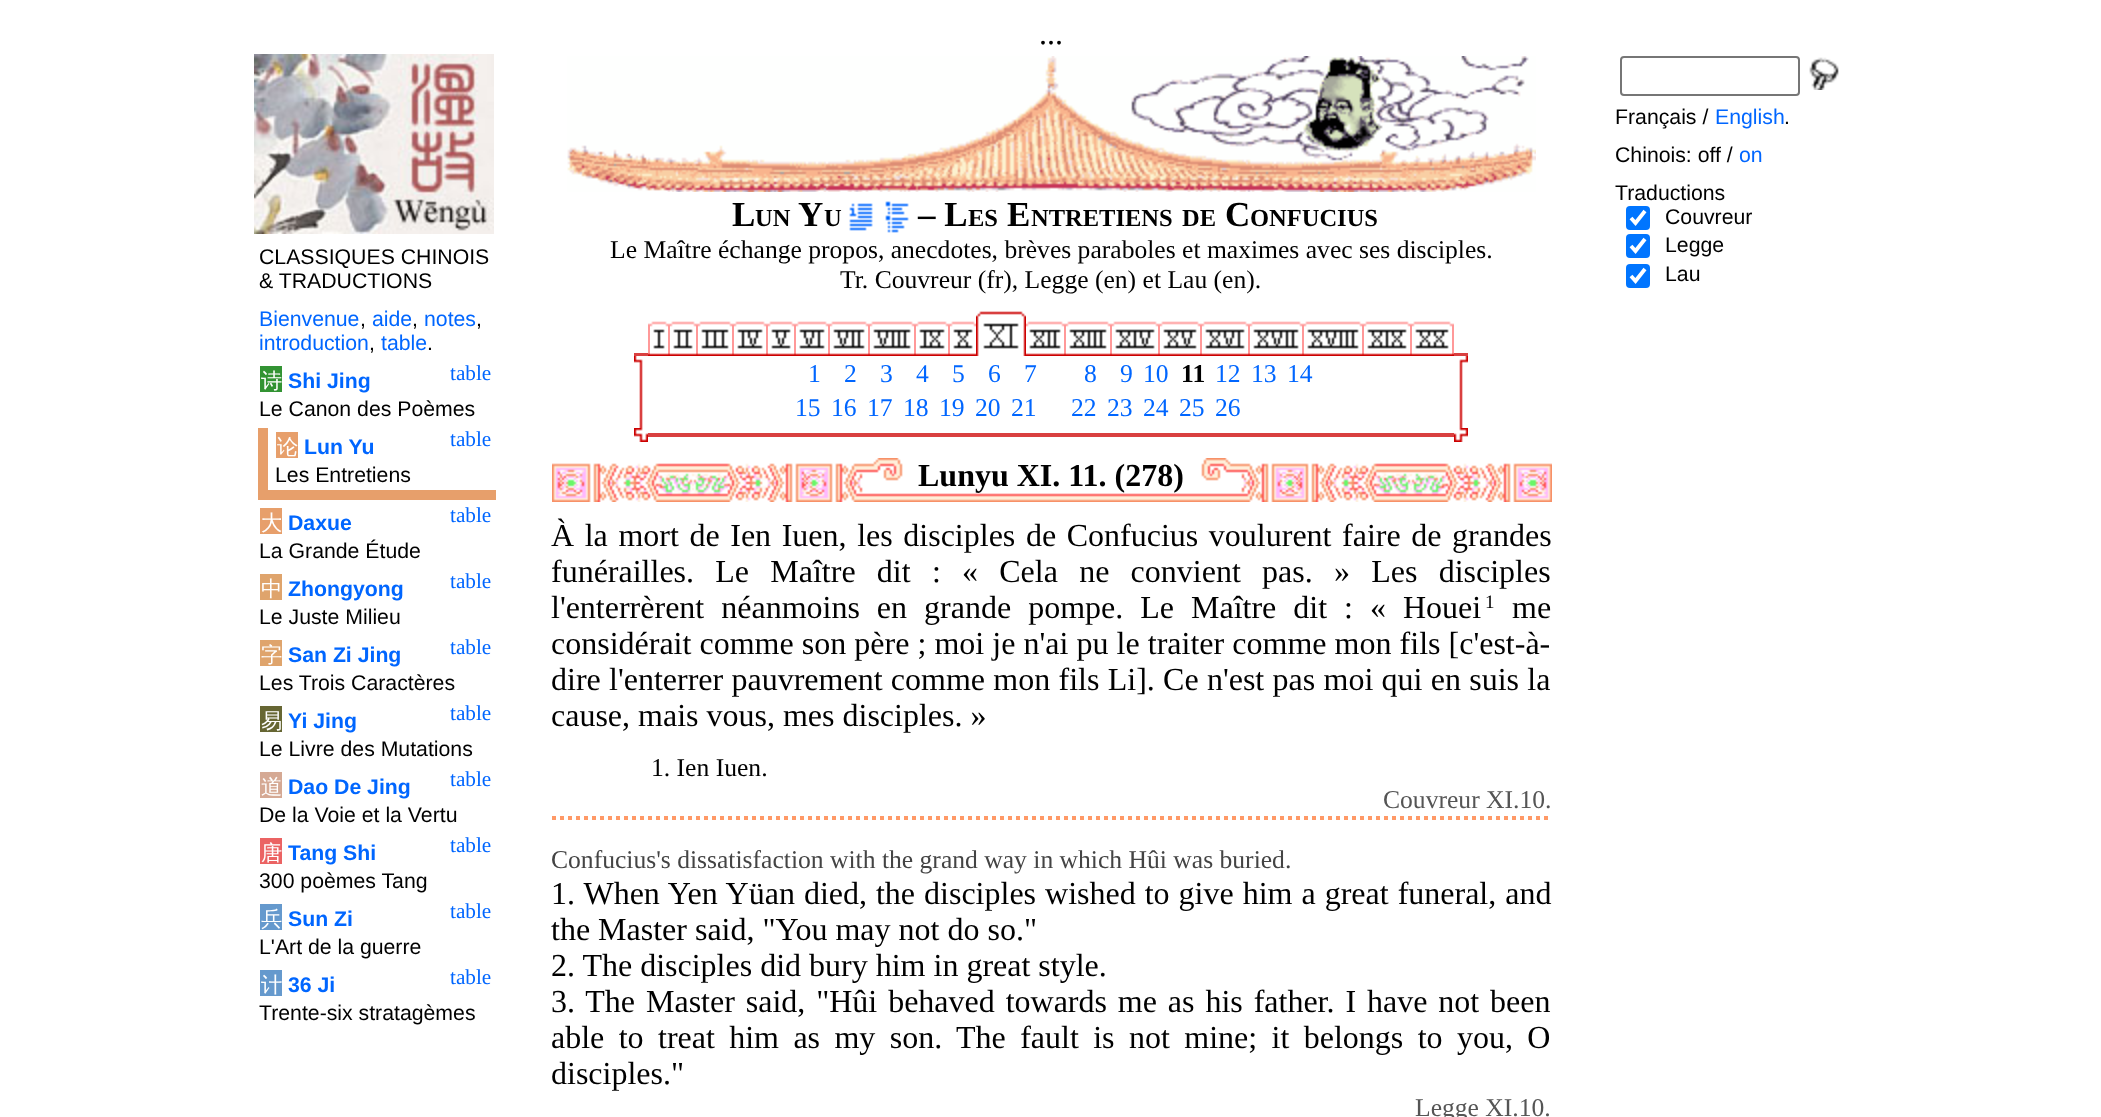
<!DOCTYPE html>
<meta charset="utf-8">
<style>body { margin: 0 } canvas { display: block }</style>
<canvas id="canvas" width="2101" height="1117"></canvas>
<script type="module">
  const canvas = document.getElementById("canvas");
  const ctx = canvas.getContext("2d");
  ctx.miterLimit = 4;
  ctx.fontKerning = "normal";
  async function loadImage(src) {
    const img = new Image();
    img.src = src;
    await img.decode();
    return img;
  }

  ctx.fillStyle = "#ffffff";
  ctx.fillRect(0, 0, 2101, 1117);
  ctx.font = "32px Liberation Serif";
  ctx.fillStyle = "#000000";
  ctx.fillText("...", 1039, 44);
  ctx.drawImage(await loadImage("img1.png"), 254, 54, 240, 180);
  ctx.font = "21.25px Liberation Sans";
  ctx.fillText("CLASSIQUES CHINOIS", 259, 264);
  ctx.fillText("& TRADUCTIONS", 259, 288);
  ctx.fillStyle = "#0066ff";
  ctx.fillText("Bienvenue", 259, 326);
  ctx.fillStyle = "#000000";
  ctx.fillText(",", 360, 326);
  ctx.fillStyle = "#0066ff";
  ctx.fillText("aide", 372, 326);
  ctx.fillStyle = "#000000";
  ctx.fillText(",", 412, 326);
  ctx.fillStyle = "#0066ff";
  ctx.fillText("notes", 424, 326);
  ctx.fillStyle = "#000000";
  ctx.fillText(",", 476, 326);
  ctx.fillStyle = "#0066ff";
  ctx.fillText("introduction", 259, 350);
  ctx.fillStyle = "#000000";
  ctx.fillText(",", 369, 350);
  ctx.fillStyle = "#0066ff";
  ctx.fillText("table", 381, 350);
  ctx.fillStyle = "#000000";
  ctx.fillText(".", 427, 350);
  ctx.font = "21.25px Liberation Serif";
  ctx.fillStyle = "#0066ff";
  ctx.fillText("table", 450, 380);
  ctx.fillStyle = "#329333";
  ctx.fillRect(260, 366, 22, 26);
  ctx.font = "500 21.25px WenQuanYi Zen Hei";
  ctx.fillStyle = "#ffffff";
  ctx.fillText("诗", 261, 388);
  ctx.font = "bold 21.25px Liberation Sans";
  ctx.fillStyle = "#0066ff";
  ctx.fillText("Shi Jing", 288, 388);
  ctx.font = "21.25px Liberation Sans";
  ctx.fillStyle = "#000000";
  ctx.fillText("Le Canon des Poèmes", 259, 416);
  ctx.fillStyle = "#e79f6b";
  ctx.fillRect(268, 490, 228, 10);
  ctx.fillRect(258, 428, 10, 72);
  ctx.fillRect(276, 432, 22, 26);
  ctx.font = "500 21.25px WenQuanYi Zen Hei";
  ctx.fillStyle = "#ffffff";
  ctx.fillText("论", 277, 454);
  ctx.font = "bold 21.25px Liberation Sans";
  ctx.fillStyle = "#0066ff";
  ctx.fillText("Lun Yu", 304, 454);
  ctx.font = "21.25px Liberation Sans";
  ctx.fillStyle = "#000000";
  ctx.fillText("Les Entretiens", 275, 482);
  ctx.font = "21.25px Liberation Serif";
  ctx.fillStyle = "#0066ff";
  ctx.fillText("table", 450, 446);
  ctx.fillStyle = "#e79f6b";
  ctx.fillRect(260, 508, 22, 26);
  ctx.font = "500 21.25px WenQuanYi Zen Hei";
  ctx.fillStyle = "#ffffff";
  ctx.fillText("大", 261, 530);
  ctx.font = "bold 21.25px Liberation Sans";
  ctx.fillStyle = "#0066ff";
  ctx.fillText("Daxue", 288, 530);
  ctx.font = "21.25px Liberation Sans";
  ctx.fillStyle = "#000000";
  ctx.fillText("La Grande Étude", 259, 558);
  ctx.font = "21.25px Liberation Serif";
  ctx.fillStyle = "#0066ff";
  ctx.fillText("table", 450, 522);
  ctx.fillStyle = "#dfa46c";
  ctx.fillRect(260, 574, 22, 26);
  ctx.font = "500 21.25px WenQuanYi Zen Hei";
  ctx.fillStyle = "#ffffff";
  ctx.fillText("中", 261, 596);
  ctx.font = "bold 21.25px Liberation Sans";
  ctx.fillStyle = "#0066ff";
  ctx.fillText("Zhongyong", 288, 596);
  ctx.font = "21.25px Liberation Sans";
  ctx.fillStyle = "#000000";
  ctx.fillText("Le Juste Milieu", 259, 624);
  ctx.font = "21.25px Liberation Serif";
  ctx.fillStyle = "#0066ff";
  ctx.fillText("table", 450, 588);
  ctx.fillStyle = "#dfa46c";
  ctx.fillRect(260, 640, 22, 26);
  ctx.font = "500 21.25px WenQuanYi Zen Hei";
  ctx.fillStyle = "#ffffff";
  ctx.fillText("字", 261, 662);
  ctx.font = "bold 21.25px Liberation Sans";
  ctx.fillStyle = "#0066ff";
  ctx.fillText("San Zi Jing", 288, 662);
  ctx.font = "21.25px Liberation Sans";
  ctx.fillStyle = "#000000";
  ctx.fillText("Les Trois Caractères", 259, 690);
  ctx.font = "21.25px Liberation Serif";
  ctx.fillStyle = "#0066ff";
  ctx.fillText("table", 450, 654);
  ctx.fillText("table", 450, 720);
  ctx.fillStyle = "#666633";
  ctx.fillRect(260, 706, 22, 26);
  ctx.font = "500 21.25px WenQuanYi Zen Hei";
  ctx.fillStyle = "#ffffff";
  ctx.fillText("易", 261, 728);
  ctx.font = "bold 21.25px Liberation Sans";
  ctx.fillStyle = "#0066ff";
  ctx.fillText("Yi Jing", 288, 728);
  ctx.font = "21.25px Liberation Sans";
  ctx.fillStyle = "#000000";
  ctx.fillText("Le Livre des Mutations", 259, 756);
  ctx.fillStyle = "#d5a994";
  ctx.fillRect(260, 772, 22, 26);
  ctx.font = "500 21.25px WenQuanYi Zen Hei";
  ctx.fillStyle = "#ffffff";
  ctx.fillText("道", 261, 794);
  ctx.font = "bold 21.25px Liberation Sans";
  ctx.fillStyle = "#0066ff";
  ctx.fillText("Dao De Jing", 288, 794);
  ctx.font = "21.25px Liberation Sans";
  ctx.fillStyle = "#000000";
  ctx.fillText("De la Voie et la Vertu", 259, 822);
  ctx.font = "21.25px Liberation Serif";
  ctx.fillStyle = "#0066ff";
  ctx.fillText("table", 450, 786);
  ctx.fillStyle = "#eb6363";
  ctx.fillRect(260, 838, 22, 26);
  ctx.font = "500 21.25px WenQuanYi Zen Hei";
  ctx.fillStyle = "#ffffff";
  ctx.fillText("唐", 261, 860);
  ctx.font = "bold 21.25px Liberation Sans";
  ctx.fillStyle = "#0066ff";
  ctx.fillText("Tang Shi", 288, 860);
  ctx.font = "21.25px Liberation Sans";
  ctx.fillStyle = "#000000";
  ctx.fillText("300 poèmes Tang", 259, 888);
  ctx.font = "21.25px Liberation Serif";
  ctx.fillStyle = "#0066ff";
  ctx.fillText("table", 450, 852);
  ctx.fillStyle = "#6599cd";
  ctx.fillRect(260, 904, 22, 26);
  ctx.font = "500 21.25px WenQuanYi Zen Hei";
  ctx.fillStyle = "#ffffff";
  ctx.fillText("兵", 261, 926);
  ctx.font = "bold 21.25px Liberation Sans";
  ctx.fillStyle = "#0066ff";
  ctx.fillText("Sun Zi", 288, 926);
  ctx.font = "21.25px Liberation Sans";
  ctx.fillStyle = "#000000";
  ctx.fillText("L'Art de la guerre", 259, 954);
  ctx.font = "21.25px Liberation Serif";
  ctx.fillStyle = "#0066ff";
  ctx.fillText("table", 450, 918);
  ctx.fillText("table", 450, 984);
  ctx.fillStyle = "#6599cd";
  ctx.fillRect(260, 970, 22, 26);
  ctx.font = "500 21.25px WenQuanYi Zen Hei";
  ctx.fillStyle = "#ffffff";
  ctx.fillText("计", 261, 992);
  ctx.font = "bold 21.25px Liberation Sans";
  ctx.fillStyle = "#0066ff";
  ctx.fillText("36 Ji", 288, 992);
  ctx.font = "21.25px Liberation Sans";
  ctx.fillStyle = "#000000";
  ctx.fillText("Trente-six stratagèmes", 259, 1020);
  ctx.drawImage(await loadImage("img2.png"), 567, 56, 969, 136);
  ctx.font = "bold 35px Liberation Serif";
  ctx.fillText("L", 732, 226);
  ctx.font = "bold 24.5px Liberation Serif";
  ctx.fillText("UN", 755, 226);
  ctx.font = "bold 35px Liberation Serif";
  ctx.fillText("Y", 798, 226);
  ctx.font = "bold 24.5px Liberation Serif";
  ctx.fillText("U", 824, 226);
  ctx.drawImage(await loadImage("img3.png"), 849, 203, 24, 28);
  ctx.drawImage(await loadImage("img4.png"), 885, 201, 24, 32);
  ctx.font = "bold 35px Liberation Serif";
  ctx.fillText("– L", 918, 226);
  ctx.font = "bold 24.5px Liberation Serif";
  ctx.fillText("ES", 968, 226);
  ctx.font = "bold 35px Liberation Serif";
  ctx.fillText("E", 1007, 226);
  ctx.font = "bold 24.5px Liberation Serif";
  ctx.fillText("NTRETIENS", 1031, 226);
  ctx.fillText("DE", 1182, 226);
  ctx.font = "bold 35px Liberation Serif";
  ctx.fillText("C", 1225, 226);
  ctx.font = "bold 24.5px Liberation Serif";
  ctx.fillText("ONFUCIUS", 1250, 226);
  ctx.font = "25.6px Liberation Serif";
  ctx.fillText("Le Maître échange propos, anecdotes, brèves paraboles et maximes avec ses disciples.", 610, 258);
  ctx.fillText("Tr. Couvreur (fr), Legge (en) et Lau (en).", 840, 288);
  ctx.fillStyle = "#d94040";
  ctx.fillRect(634, 353, 14, 3);
  ctx.drawImage(await loadImage("img5.png"), 648, 323, 2, 33);
  ctx.drawImage(await loadImage("img6.png"), 650, 321, 18, 35);
  ctx.drawImage(await loadImage("img5.png"), 668, 323, 2, 33);
  ctx.drawImage(await loadImage("img7.png"), 670, 321, 26, 35);
  ctx.drawImage(await loadImage("img5.png"), 696, 323, 2, 33);
  ctx.drawImage(await loadImage("img8.png"), 698, 321, 34, 35);
  ctx.drawImage(await loadImage("img5.png"), 732, 323, 2, 33);
  ctx.drawImage(await loadImage("img9.png"), 734, 321, 32, 35);
  ctx.drawImage(await loadImage("img5.png"), 766, 323, 2, 33);
  ctx.drawImage(await loadImage("img10.png"), 768, 321, 26, 35);
  ctx.drawImage(await loadImage("img5.png"), 794, 323, 2, 33);
  ctx.drawImage(await loadImage("img11.png"), 796, 321, 32, 35);
  ctx.drawImage(await loadImage("img5.png"), 828, 323, 2, 33);
  ctx.drawImage(await loadImage("img12.png"), 830, 321, 38, 35);
  ctx.drawImage(await loadImage("img5.png"), 868, 323, 2, 33);
  ctx.drawImage(await loadImage("img13.png"), 870, 321, 44, 35);
  ctx.drawImage(await loadImage("img5.png"), 914, 323, 2, 33);
  ctx.drawImage(await loadImage("img14.png"), 916, 321, 32, 35);
  ctx.drawImage(await loadImage("img5.png"), 948, 323, 2, 33);
  ctx.drawImage(await loadImage("img15.png"), 950, 321, 26, 35);
  ctx.drawImage(await loadImage("img16.png"), 976, 311, 50, 45);
  ctx.drawImage(await loadImage("img17.png"), 1026, 321, 38, 35);
  ctx.drawImage(await loadImage("img5.png"), 1064, 323, 2, 33);
  ctx.drawImage(await loadImage("img18.png"), 1066, 321, 44, 35);
  ctx.drawImage(await loadImage("img5.png"), 1110, 323, 2, 33);
  ctx.drawImage(await loadImage("img19.png"), 1112, 321, 46, 35);
  ctx.drawImage(await loadImage("img5.png"), 1158, 323, 2, 33);
  ctx.drawImage(await loadImage("img20.png"), 1160, 321, 40, 35);
  ctx.drawImage(await loadImage("img5.png"), 1200, 323, 2, 33);
  ctx.drawImage(await loadImage("img21.png"), 1202, 321, 46, 35);
  ctx.drawImage(await loadImage("img5.png"), 1248, 323, 2, 33);
  ctx.drawImage(await loadImage("img22.png"), 1250, 321, 52, 35);
  ctx.drawImage(await loadImage("img5.png"), 1302, 323, 2, 33);
  ctx.drawImage(await loadImage("img23.png"), 1304, 321, 58, 35);
  ctx.drawImage(await loadImage("img5.png"), 1362, 323, 2, 33);
  ctx.drawImage(await loadImage("img24.png"), 1364, 321, 46, 35);
  ctx.drawImage(await loadImage("img5.png"), 1410, 323, 2, 33);
  ctx.drawImage(await loadImage("img25.png"), 1412, 321, 40, 35);
  ctx.drawImage(await loadImage("img5.png"), 1452, 323, 2, 33);
  ctx.fillRect(1454, 353, 14, 3);
  ctx.drawImage(await loadImage("img26.png"), 634, 356, 9, 72);
  ctx.fillStyle = "#0066ff";
  ctx.fillText("1", 808, 382);
  ctx.fillText("2", 844, 382);
  ctx.fillText("3", 880, 382);
  ctx.fillText("4", 916, 382);
  ctx.fillText("5", 952, 382);
  ctx.fillText("6", 988, 382);
  ctx.fillText("7", 1024, 382);
  ctx.fillText("8", 1084, 382);
  ctx.fillText("9", 1120, 382);
  ctx.fillText("10", 1143, 382);
  ctx.font = "bold 25.6px Liberation Serif";
  ctx.fillStyle = "#000000";
  ctx.fillText("11", 1181, 382);
  ctx.font = "25.6px Liberation Serif";
  ctx.fillStyle = "#0066ff";
  ctx.fillText("12", 1215, 382);
  ctx.fillText("13", 1251, 382);
  ctx.fillText("14", 1287, 382);
  ctx.fillText("15", 795, 416);
  ctx.fillText("16", 831, 416);
  ctx.fillText("17", 867, 416);
  ctx.fillText("18", 903, 416);
  ctx.fillText("19", 939, 416);
  ctx.fillText("20", 975, 416);
  ctx.fillText("21", 1011, 416);
  ctx.fillText("22", 1071, 416);
  ctx.fillText("23", 1107, 416);
  ctx.fillText("24", 1143, 416);
  ctx.fillText("25", 1179, 416);
  ctx.fillText("26", 1215, 416);
  ctx.drawImage(await loadImage("img27.png"), 1459, 356, 9, 72);
  ctx.drawImage(await loadImage("img28.png"), 634, 428, 14, 14);
  ctx.fillStyle = "#d94040";
  ctx.fillRect(648, 433, 806, 4);
  ctx.drawImage(await loadImage("img29.png"), 1454, 428, 14, 14);
  ctx.drawImage(await loadImage("img30.png"), 552, 458, 1000, 44);
  ctx.font = "bold 32px Liberation Serif";
  ctx.fillStyle = "#000000";
  ctx.fillText("Lunyu XI. 11. (278)", 918, 486);
  ctx.wordSpacing = "2.6px";
  ctx.font = "32px Liberation Serif";
  ctx.fillText("À la mort de Ien Iuen, les disciples de Confucius voulurent faire de grandes", 551, 546);
  ctx.wordSpacing = "13.25px";
  ctx.fillText("funérailles. Le Maître dit : « Cela ne convient pas. » Les disciples", 551, 582);
  ctx.wordSpacing = "9px";
  ctx.fillText("l'enterrèrent néanmoins en grande pompe. Le Maître dit : « Houei", 551, 618);
  ctx.wordSpacing = "0px";
  ctx.font = "19px Liberation Serif";
  ctx.fillText("1", 1485, 608);
  ctx.font = "32px Liberation Serif";
  ctx.fillText("me", 1512, 618);
  ctx.wordSpacing = "0.1px";
  ctx.fillText("considérait comme son père ; moi je n'ai pu le traiter comme mon fils [c'est-à-", 551, 654);
  ctx.wordSpacing = "0.3px";
  ctx.fillText("dire l'enterrer pauvrement comme mon fils Li]. Ce n'est pas moi qui en suis la", 551, 690);
  ctx.wordSpacing = "0px";
  ctx.fillText("cause, mais vous, mes disciples. »", 551, 726);
  ctx.font = "25.6px Liberation Serif";
  ctx.fillText("1. Ien Iuen.", 651, 776);
  ctx.beginPath();
  ctx.moveTo(552, 818);
  ctx.lineTo(1552, 818);
  ctx.strokeStyle = "#ff9966";
  ctx.lineWidth = 4;
  ctx.setLineDash([4, 4]);
  ctx.stroke();
  ctx.fillStyle = "#555555";
  ctx.fillText("Couvreur XI.10.", 1383, 808);
  ctx.fillStyle = "#444444";
  ctx.fillText("Confucius's dissatisfaction with the grand way in which Hûi was buried.", 551, 868);
  ctx.wordSpacing = "1px";
  ctx.font = "32px Liberation Serif";
  ctx.fillStyle = "#000000";
  ctx.fillText("1. When Yen Yüan died, the disciples wished to give him a great funeral, and", 551, 904);
  ctx.wordSpacing = "0px";
  ctx.fillText("the Master said, \"You may not do so.\"", 551, 940);
  ctx.fillText("2. The disciples did bury him in great style.", 551, 976);
  ctx.wordSpacing = "2.9px";
  ctx.fillText("3. The Master said, \"Hûi behaved towards me as his father. I have not been", 551, 1012);
  ctx.wordSpacing = "6.4px";
  ctx.fillText("able to treat him as my son. The fault is not mine; it belongs to you, O", 551, 1048);
  ctx.wordSpacing = "0px";
  ctx.fillText("disciples.\"", 551, 1084);
  ctx.font = "25.6px Liberation Serif";
  ctx.fillStyle = "#555555";
  ctx.fillText("Legge XI.10.", 1415, 1116);
  ctx.beginPath();
  ctx.roundRect(1621, 57, 178, 38, 3);
  ctx.strokeStyle = "#767676";
  ctx.lineWidth = 2;
  ctx.setLineDash([]);
  ctx.stroke();
  ctx.drawImage(await loadImage("img31.png"), 1809, 57, 30, 33);
  ctx.font = "21.25px Liberation Sans";
  ctx.fillStyle = "#000000";
  ctx.fillText("Français /", 1615, 124);
  ctx.fillStyle = "#0066ff";
  ctx.fillText("English", 1715, 124);
  ctx.fillStyle = "#000000";
  ctx.fillText(".", 1784, 124);
  ctx.fillText("Chinois: off /", 1615, 162);
  ctx.fillStyle = "#0066ff";
  ctx.fillText("on", 1739, 162);
  ctx.fillStyle = "#000000";
  ctx.fillText("Traductions", 1615, 200);
  ctx.fillStyle = "#0075ff";
  ctx.beginPath();
  ctx.roundRect(1626, 206, 24, 24, 4);
  ctx.fill();
  ctx.beginPath();
  ctx.moveTo(1631, 218);
  ctx.lineTo(1635.5, 223);
  ctx.lineTo(1645, 211);
  ctx.strokeStyle = "#ffffff";
  ctx.lineWidth = 3.8;
  ctx.stroke();
  ctx.fillStyle = "#000000";
  ctx.fillText("Couvreur", 1665, 224);
  ctx.fillStyle = "#0075ff";
  ctx.beginPath();
  ctx.roundRect(1626, 234, 24, 24, 4);
  ctx.fill();
  ctx.beginPath();
  ctx.moveTo(1631, 246);
  ctx.lineTo(1635.5, 251);
  ctx.lineTo(1645, 239);
  ctx.stroke();
  ctx.fillStyle = "#000000";
  ctx.fillText("Legge", 1665, 252);
  ctx.fillStyle = "#0075ff";
  ctx.beginPath();
  ctx.roundRect(1626, 264, 24, 24, 4);
  ctx.fill();
  ctx.beginPath();
  ctx.moveTo(1631, 276);
  ctx.lineTo(1635.5, 281);
  ctx.lineTo(1645, 269);
  ctx.stroke();
  ctx.fillStyle = "#000000";
  ctx.fillText("Lau", 1665, 281);
</script>
